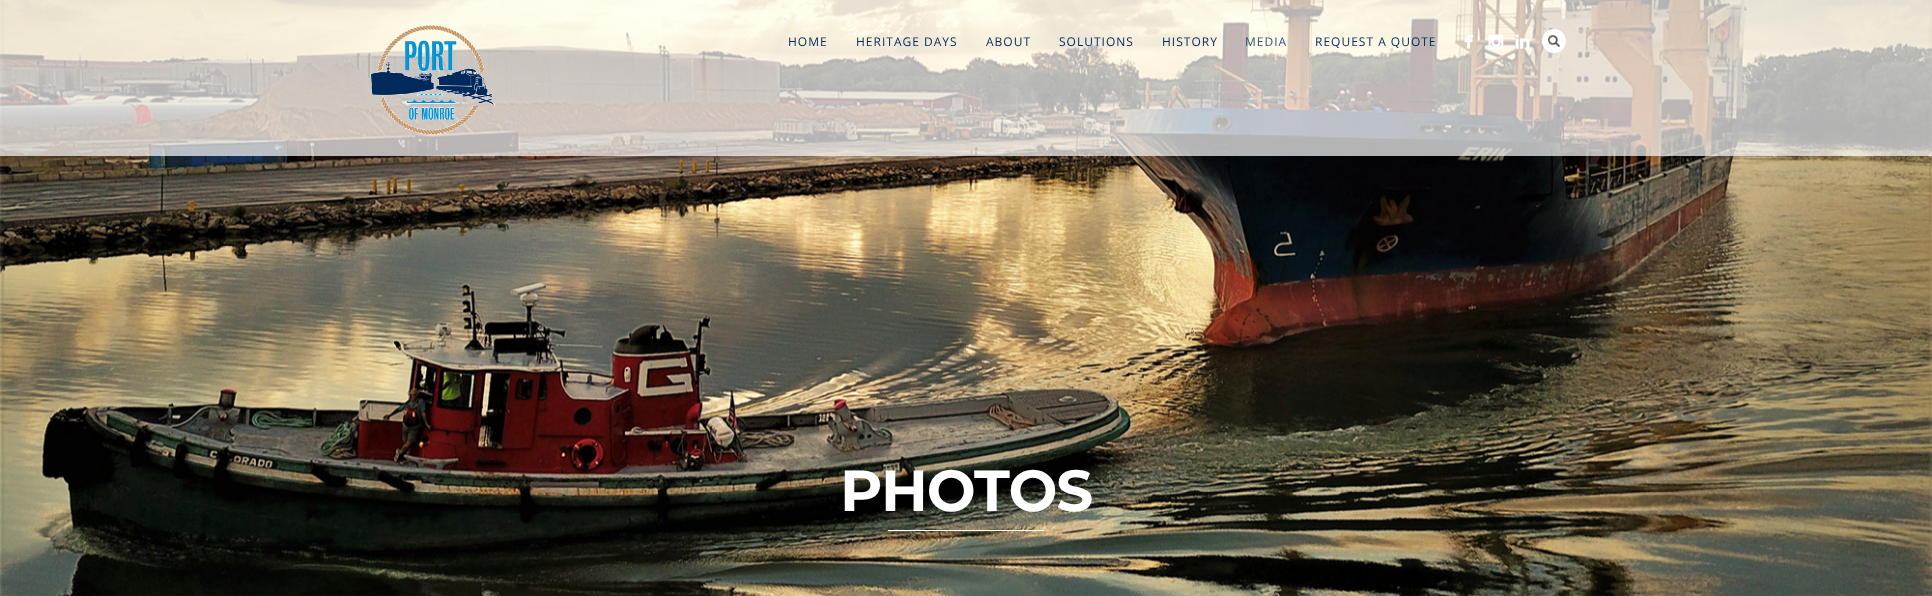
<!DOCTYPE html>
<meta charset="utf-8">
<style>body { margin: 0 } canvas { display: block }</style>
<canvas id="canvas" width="1932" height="596"></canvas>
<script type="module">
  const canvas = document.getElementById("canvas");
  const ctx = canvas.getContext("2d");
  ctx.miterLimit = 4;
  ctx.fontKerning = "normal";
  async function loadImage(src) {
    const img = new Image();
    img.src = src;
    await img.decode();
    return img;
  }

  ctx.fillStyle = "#ffffff";
  ctx.fillRect(0, 0, 1932, 596);
  ctx.drawImage(await loadImage("img1.png"), 0, 0, 1932, 596);
  ctx.fillStyle = "rgba(255, 255, 255, 0.7)";
  ctx.fillRect(0, 0, 1932, 156);
  ctx.drawImage(await loadImage("img2.png"), 370, 23, 125, 112);
  ctx.letterSpacing = "1px";
  ctx.font = "12px Open Sans";
  ctx.fillStyle = "#002a5c";
  ctx.fillText("HOME", 788, 46);
  ctx.fillText("HERITAGE DAYS", 856, 46);
  ctx.fillText("ABOUT", 986, 46);
  ctx.fillText("SOLUTIONS", 1059, 46);
  ctx.fillText("HISTORY", 1162, 46);
  ctx.fillStyle = "#315277";
  ctx.fillText("MEDIA", 1245, 46);
  ctx.fillStyle = "#002a5c";
  ctx.fillText("REQUEST A QUOTE", 1315, 46);
  ctx.drawImage(await loadImage("img3.png"), 1464, 34, 10, 15);
  ctx.drawImage(await loadImage("img4.png"), 1488, 34, 16, 16);
  ctx.drawImage(await loadImage("img5.png"), 1515, 34, 15, 15);
  ctx.fillStyle = "#ffffff";
  ctx.beginPath();
  ctx.arc(1554, 41, 12, 0, Math.PI * 2);
  ctx.fill();
  ctx.drawImage(await loadImage("img6.png"), 1548, 35, 12, 12);
  ctx.letterSpacing = "-1px";
  ctx.font = "bold 58px Montserrat";
  ctx.fillText("PHOTOS", 840, 511);
  ctx.fillRect(888, 530, 156, 1);
</script>
